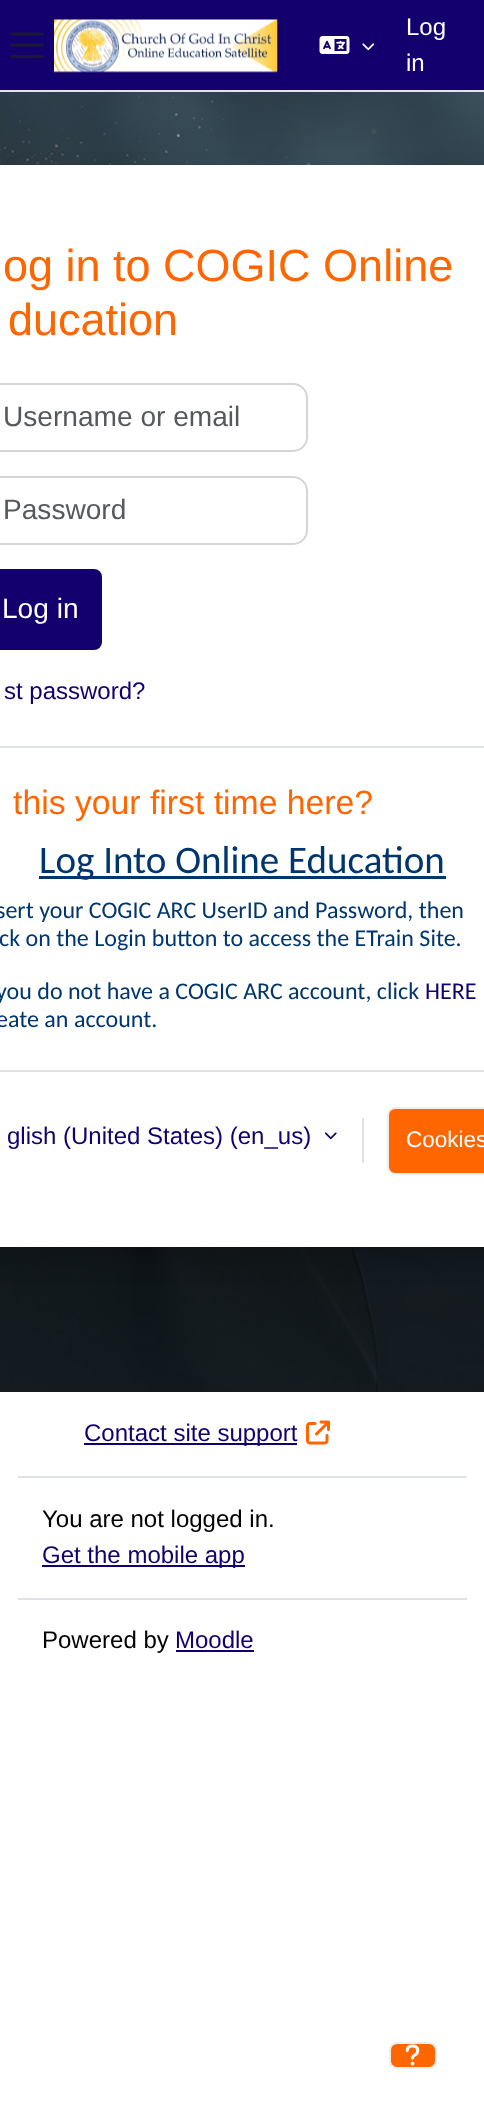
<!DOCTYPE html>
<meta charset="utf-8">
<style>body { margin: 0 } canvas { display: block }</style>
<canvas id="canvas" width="484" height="2116"></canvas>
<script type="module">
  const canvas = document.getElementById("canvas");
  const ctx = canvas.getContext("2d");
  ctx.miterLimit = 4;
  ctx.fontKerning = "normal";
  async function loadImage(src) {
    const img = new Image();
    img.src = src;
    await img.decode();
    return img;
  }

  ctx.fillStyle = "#ffffff";
  ctx.fillRect(0, 0, 484, 2116);
  ctx.fillStyle = "#13006e";
  ctx.fillRect(0, 0, 484, 90);
  ctx.fillStyle = "#e8e3e3";
  ctx.fillRect(0, 90, 484, 2);
  ctx.beginPath();
  ctx.moveTo(11.5, 34);
  ctx.lineTo(42.5, 34);
  ctx.moveTo(11.5, 45);
  ctx.lineTo(42.5, 45);
  ctx.moveTo(11.5, 56.5);
  ctx.lineTo(42.5, 56.5);
  ctx.strokeStyle = "#1b1937";
  ctx.lineWidth = 2.8;
  ctx.lineCap = "round";
  ctx.stroke();
  ctx.drawImage(await loadImage("img1.png"), 54, 19, 224, 54);
  ctx.drawImage(await loadImage("img2.png"), 319, 36, 31, 18);
  ctx.drawImage(await loadImage("img3.png"), 362, 43, 13, 8);
  ctx.font = "24px Liberation Sans";
  ctx.fillStyle = "#ffffff";
  ctx.fillText("Log", 406, 35);
  ctx.fillText("in", 406, 71);
  ctx.drawImage(await loadImage("img4.png"), 0, 92, 484, 1300);
  ctx.fillStyle = "rgba(0, 0, 0, 0.15)";
  ctx.filter = "blur(12px)";
  ctx.beginPath();
  ctx.roundRect(-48, 177, 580, 1082, 12);
  ctx.fill();
  ctx.filter = "none";
  ctx.fillStyle = "#ffffff";
  ctx.fillRect(0, 165, 484, 1082);
  ctx.font = "45px Liberation Sans";
  ctx.fillStyle = "#ff6600";
  ctx.fillText("og in to COGIC Online", 3, 281);
  ctx.fillText("ducation", 8, 335);
  ctx.beginPath();
  ctx.roundRect(-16, 384, 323, 67, 14);
  ctx.strokeStyle = "#d5d5d5";
  ctx.lineWidth = 2;
  ctx.stroke();
  ctx.font = "28.1px Liberation Sans";
  ctx.fillStyle = "#56595c";
  ctx.fillText("Username or email", 3, 426);
  ctx.beginPath();
  ctx.roundRect(-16, 477, 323, 67, 14);
  ctx.stroke();
  ctx.fillText("Password", 3, 519);
  ctx.fillStyle = "#13006e";
  ctx.beginPath();
  ctx.roundRect(-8, 569, 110, 81, 8);
  ctx.fill();
  ctx.fillStyle = "#ffffff";
  ctx.fillText("Log in", 2, 618);
  ctx.font = "24px Liberation Sans";
  ctx.fillStyle = "#13006e";
  ctx.fillText("st password?", 4, 699);
  ctx.fillStyle = "#dee2e6";
  ctx.fillRect(0, 746, 484, 2);
  ctx.font = "33.75px Liberation Sans";
  ctx.fillStyle = "#ff6600";
  ctx.fillText("this your first time here?", 13, 814);
  ctx.fillStyle = "#00366d";
  ctx.fillRect(39, 876, 407, 3);
  ctx.font = "39px Carlito";
  ctx.fillText("Log Into Online Education", 39, 873);
  ctx.font = "24px Carlito";
  ctx.fillText("sert your COGIC ARC UserID and Password, then", -4, 918);
  ctx.fillText("ck on the Login button to access the ETrain Site.", -1, 946);
  ctx.fillText("you do not have a COGIC ARC account, click", -4, 999);
  ctx.fillStyle = "#13006e";
  ctx.fillText("HERE", 425, 999);
  ctx.fillStyle = "#00366d";
  ctx.fillText("eate an account.", -4, 1027);
  ctx.fillStyle = "#dee2e6";
  ctx.fillRect(0, 1070, 484, 2);
  ctx.font = "24px Liberation Sans";
  ctx.fillStyle = "#13006e";
  ctx.fillText("glish (United States) (en_us)", 7, 1144);
  ctx.drawImage(await loadImage("img5.png"), 324, 1132, 13, 8);
  ctx.fillStyle = "#dee2e6";
  ctx.fillRect(362, 1118, 2, 45);
  ctx.fillStyle = "#ff6600";
  ctx.beginPath();
  ctx.roundRect(388, 1108, 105, 66, 7);
  ctx.fill();
  ctx.strokeStyle = "#eeeeee";
  ctx.stroke();
  ctx.font = "22.5px Liberation Sans";
  ctx.fillStyle = "#ffffff";
  ctx.fillText("Cookies", 406, 1147);
  ctx.fillStyle = "#dee2e6";
  ctx.fillRect(18, 1476, 449, 2);
  ctx.fillStyle = "#13006e";
  ctx.fillRect(84, 1443, 213, 2);
  ctx.font = "24px Liberation Sans";
  ctx.fillText("Contact site support", 84, 1441);
  ctx.drawImage(await loadImage("img6.png"), 306, 1420, 24, 25);
  ctx.fillStyle = "#dee2e6";
  ctx.fillRect(18, 1598, 449, 2);
  ctx.fillStyle = "#000000";
  ctx.fillText("You are not logged in.", 42, 1527);
  ctx.fillStyle = "#13006e";
  ctx.fillRect(42, 1565, 203, 2);
  ctx.fillText("Get the mobile app", 42, 1563);
  ctx.fillStyle = "#000000";
  ctx.fillText("Powered by", 42, 1648);
  ctx.fillStyle = "#13006e";
  ctx.fillText("Moodle", 175, 1648);
  ctx.fillRect(176, 1650, 78, 2);
  ctx.fillStyle = "#ff6600";
  ctx.beginPath();
  ctx.roundRect(390, 2043, 46, 25, 7);
  ctx.fill();
  ctx.stroke();
  ctx.drawImage(await loadImage("img7.png"), 405, 2044, 15, 22);
</script>
